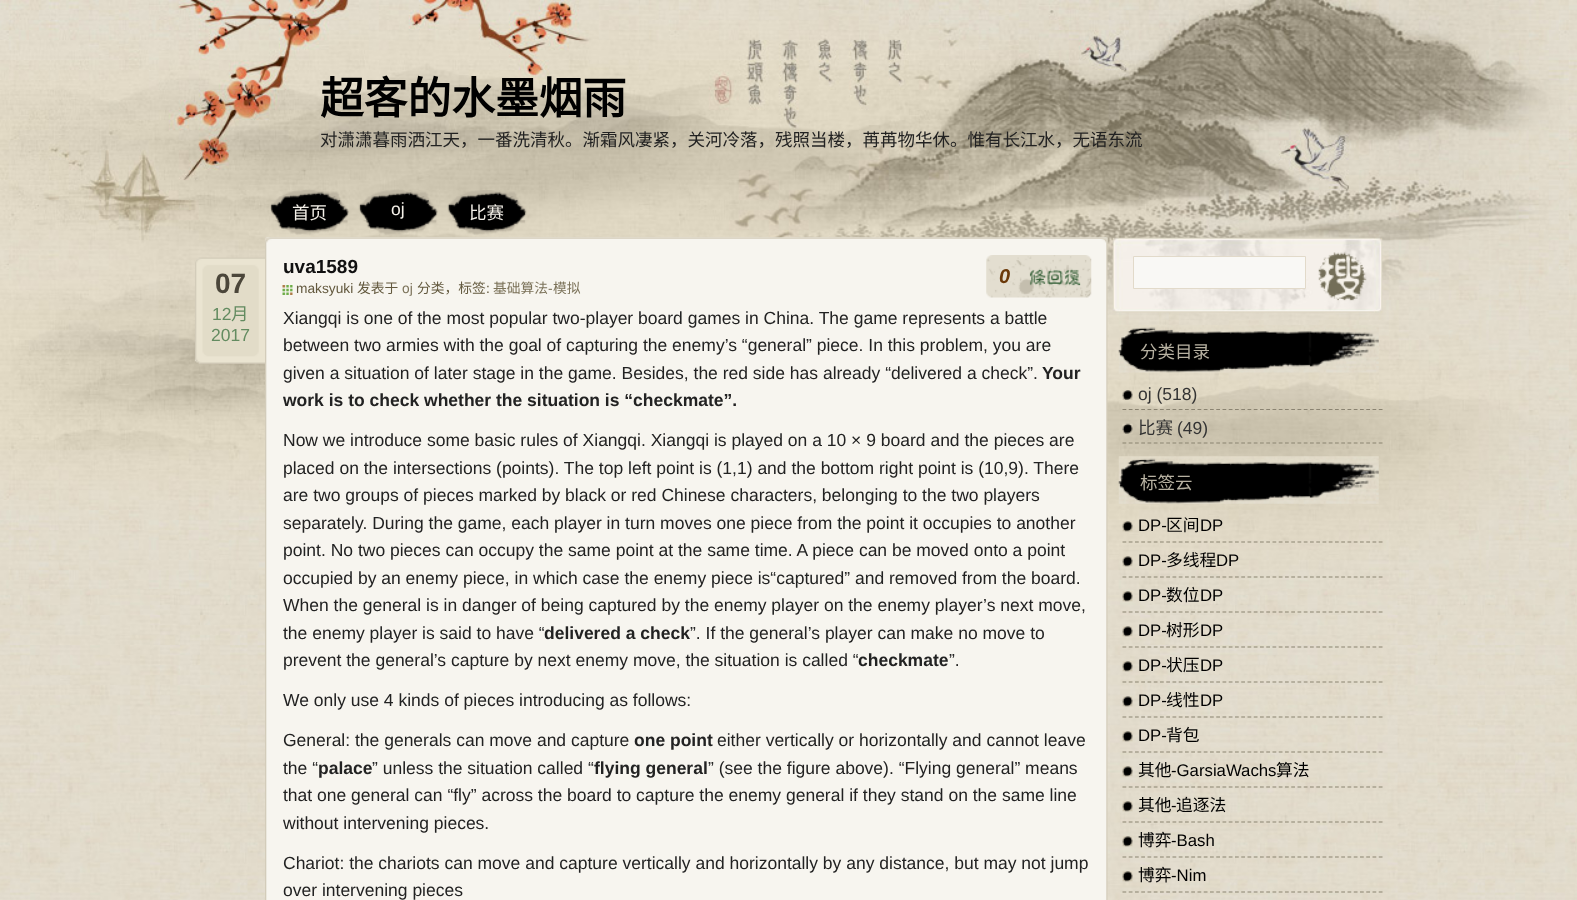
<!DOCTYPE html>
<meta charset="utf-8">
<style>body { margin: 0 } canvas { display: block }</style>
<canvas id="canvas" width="1577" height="900"></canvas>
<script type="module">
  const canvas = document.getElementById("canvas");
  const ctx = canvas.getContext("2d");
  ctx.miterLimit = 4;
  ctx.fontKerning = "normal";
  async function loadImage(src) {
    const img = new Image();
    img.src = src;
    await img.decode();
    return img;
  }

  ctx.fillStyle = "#ffffff";
  ctx.fillRect(0, 0, 1577, 900);
  ctx.drawImage(await loadImage("img1.png"), 0, 588, 1577, 312);
  ctx.drawImage(await loadImage("img2.png"), 0, 0, 1577, 589);
  ctx.font = "bold 43.75px Noto Sans CJK SC";
  ctx.fillStyle = "#000000";
  ctx.fillText("超客的水墨烟雨", 320, 114);
  ctx.font = "17.5px Noto Sans CJK SC";
  ctx.fillStyle = "#222222";
  ctx.fillText("对潇潇暮雨洒江天，一番洗清秋。渐霜风凄紧，关河冷落，残照当楼，苒苒物华休。惟有长江水，无语东流", 320, 146);
  ctx.drawImage(await loadImage("img3.png"), 270, 189, 79, 46);
  ctx.fillStyle = "#f4f0e8";
  ctx.fillText("首页", 292, 219);
  ctx.drawImage(await loadImage("img4.png"), 358, 189, 80, 46);
  ctx.font = "17.5px Liberation Sans";
  ctx.fillText("oj", 391, 215);
  ctx.drawImage(await loadImage("img5.png"), 447, 190, 80, 45);
  ctx.font = "17.5px Noto Sans CJK SC";
  ctx.fillText("比赛", 469, 219);
  ctx.drawImage(await loadImage("img6.png"), 265, 237, 843, 663);
  ctx.drawImage(await loadImage("img7.png"), 265, 237, 843, 6);
  ctx.font = "bold 19px Liberation Sans";
  ctx.fillStyle = "#111111";
  ctx.fillText("uva1589", 283, 273);
  ctx.drawImage(await loadImage("img8.png"), 195, 257, 70, 107);
  ctx.font = "bold 28px Liberation Sans";
  ctx.fillStyle = "#4b463a";
  ctx.fillText("07", 215, 293);
  ctx.font = "17.5px Liberation Sans";
  ctx.fillStyle = "#638b60";
  ctx.fillText("12", 212, 320);
  ctx.font = "17.5px Noto Sans CJK SC";
  ctx.fillText("月", 231, 320);
  ctx.font = "17.5px Liberation Sans";
  ctx.fillText("2017", 211, 341);
  ctx.drawImage(await loadImage("img9.png"), 282, 285, 11, 10);
  ctx.font = "13.75px Liberation Sans";
  ctx.fillStyle = "#63593e";
  ctx.fillText("maksyuki", 296, 293);
  ctx.font = "13.75px Noto Sans CJK SC";
  ctx.fillText("发表于", 357, 293);
  ctx.font = "13.75px Liberation Sans";
  ctx.fillStyle = "#7c735a";
  ctx.fillText("oj", 402, 293);
  ctx.font = "13.75px Noto Sans CJK SC";
  ctx.fillStyle = "#63593e";
  ctx.fillText("分类，标签", 417, 293);
  ctx.font = "13.75px Liberation Sans";
  ctx.fillText(":", 486, 293);
  ctx.font = "13.75px Noto Sans CJK SC";
  ctx.fillStyle = "#7c735a";
  ctx.fillText("基础算法", 493, 293);
  ctx.font = "13.75px Liberation Sans";
  ctx.fillText("-", 548, 293);
  ctx.font = "13.75px Noto Sans CJK SC";
  ctx.fillText("模拟", 553, 293);
  ctx.drawImage(await loadImage("img10.png"), 986, 255, 106, 43);
  ctx.font = "italic bold 20px Liberation Sans";
  ctx.fillStyle = "#6b3909";
  ctx.fillText("0", 999, 283);
  ctx.font = "17.5px Liberation Sans";
  ctx.fillStyle = "#222222";
  ctx.fillText("Xiangqi is one of the most popular two-player board games in China. The game represents a battle", 283, 324);
  ctx.fillText("between two armies with the goal of capturing the enemy’s “general” piece. In this problem, you are", 283, 351);
  ctx.fillText("given a situation of later stage in the game. Besides, the red side has already “delivered a check”.", 283, 379);
  ctx.font = "bold 17.5px Liberation Sans";
  ctx.fillText("Your", 1042, 379);
  ctx.save();
  ctx.beginPath();
  ctx.rect(283, 304, 806, 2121);
  ctx.clip();
  ctx.fillText("work is to check whether the situation is “checkmate”.", 283, 406);
  ctx.restore();
  ctx.font = "17.5px Liberation Sans";
  ctx.fillText("Now we introduce some basic rules of Xiangqi. Xiangqi is played on a 10 × 9 board and the pieces are", 283, 446);
  ctx.fillText("placed on the intersections (points). The top left point is (1,1) and the bottom right point is (10,9). There", 283, 474);
  ctx.fillText("are two groups of pieces marked by black or red Chinese characters, belonging to the two players", 283, 501);
  ctx.fillText("separately. During the game, each player in turn moves one piece from the point it occupies to another", 283, 529);
  ctx.fillText("point. No two pieces can occupy the same point at the same time. A piece can be moved onto a point", 283, 556);
  ctx.fillText("occupied by an enemy piece, in which case the enemy piece is“captured” and removed from the board.", 283, 584);
  ctx.fillText("When the general is in danger of being captured by the enemy player on the enemy player’s next move,", 283, 611);
  ctx.fillText("the enemy player is said to have “", 283, 639);
  ctx.font = "bold 17.5px Liberation Sans";
  ctx.fillText("delivered a check", 544, 639);
  ctx.font = "17.5px Liberation Sans";
  ctx.fillText("”. If the general’s player can make no move to", 690, 639);
  ctx.fillText("prevent the general’s capture by next enemy move, the situation is called “", 283, 666);
  ctx.font = "bold 17.5px Liberation Sans";
  ctx.fillText("checkmate", 858, 666);
  ctx.font = "17.5px Liberation Sans";
  ctx.fillText("”.", 949, 666);
  ctx.fillText("We only use 4 kinds of pieces introducing as follows:", 283, 706);
  ctx.fillText("General: the generals can move and capture", 283, 746);
  ctx.font = "bold 17.5px Liberation Sans";
  ctx.fillText("one point", 634, 746);
  ctx.font = "17.5px Liberation Sans";
  ctx.fillText("either vertically or horizontally and cannot leave", 717, 746);
  ctx.fillText("the “", 283, 774);
  ctx.font = "bold 17.5px Liberation Sans";
  ctx.fillText("palace", 318, 774);
  ctx.font = "17.5px Liberation Sans";
  ctx.fillText("” unless the situation called “", 372, 774);
  ctx.font = "bold 17.5px Liberation Sans";
  ctx.fillText("flying general", 594, 774);
  ctx.font = "17.5px Liberation Sans";
  ctx.fillText("” (see the figure above). “Flying general” means", 708, 774);
  ctx.fillText("that one general can “fly” across the board to capture the enemy general if they stand on the same line", 283, 801);
  ctx.fillText("without intervening pieces.", 283, 829);
  ctx.fillText("Chariot: the chariots can move and capture vertically and horizontally by any distance, but may not jump", 283, 869);
  ctx.fillText("over intervening pieces", 283, 896);
  ctx.drawImage(await loadImage("img11.png"), 1112, 237, 271, 76);
  ctx.fillStyle = "#f9f8f5";
  ctx.beginPath();
  ctx.rect(1133.5, 256.5, 172, 32);
  ctx.fill();
  ctx.strokeStyle = "#e2daca";
  ctx.stroke();
  ctx.drawImage(await loadImage("img12.png"), 1318, 252, 49, 49);
  ctx.drawImage(await loadImage("img13.png"), 1118, 325, 261, 48);
  ctx.font = "17.5px Noto Sans CJK SC";
  ctx.fillStyle = "#b7b1a1";
  ctx.fillText("分类目录", 1140, 358);
  ctx.drawImage(await loadImage("img14.png"), 1122, 390, 11, 10);
  ctx.beginPath();
  ctx.moveTo(1122.5, 409.5);
  ctx.lineTo(1382.5, 409.5);
  ctx.strokeStyle = "#8a8371";
  ctx.lineWidth = 1.2;
  ctx.setLineDash([3.75, 2.5]);
  ctx.stroke();
  ctx.font = "17.5px Liberation Sans";
  ctx.fillStyle = "#333333";
  ctx.fillText("oj (518)", 1138, 400);
  ctx.drawImage(await loadImage("img15.png"), 1122, 423, 11, 11);
  ctx.beginPath();
  ctx.moveTo(1122.5, 443);
  ctx.lineTo(1382.5, 443);
  ctx.stroke();
  ctx.font = "17.5px Noto Sans CJK SC";
  ctx.fillText("比赛", 1138, 434);
  ctx.font = "17.5px Liberation Sans";
  ctx.fillText("(49)", 1177, 434);
  ctx.drawImage(await loadImage("img16.png"), 1118, 456, 261, 48);
  ctx.font = "17.5px Noto Sans CJK SC";
  ctx.fillStyle = "#b7b1a1";
  ctx.fillText("标签云", 1140, 489);
  ctx.drawImage(await loadImage("img17.png"), 1122, 521, 11, 11);
  ctx.beginPath();
  ctx.moveTo(1122.5, 542);
  ctx.lineTo(1382.5, 542);
  ctx.stroke();
  ctx.font = "16.75px Liberation Sans";
  ctx.fillStyle = "#000000";
  ctx.fillText("DP-", 1138, 531);
  ctx.font = "16.75px Noto Sans CJK SC";
  ctx.fillText("区间", 1166, 531);
  ctx.font = "16.75px Liberation Sans";
  ctx.fillText("DP", 1200, 531);
  ctx.drawImage(await loadImage("img18.png"), 1122, 556, 11, 11);
  ctx.beginPath();
  ctx.moveTo(1122.5, 577);
  ctx.lineTo(1382.5, 577);
  ctx.stroke();
  ctx.fillText("DP-", 1138, 566);
  ctx.font = "16.75px Noto Sans CJK SC";
  ctx.fillText("多线程", 1166, 566);
  ctx.font = "16.75px Liberation Sans";
  ctx.fillText("DP", 1216, 566);
  ctx.drawImage(await loadImage("img19.png"), 1122, 591, 11, 11);
  ctx.beginPath();
  ctx.moveTo(1122.5, 612);
  ctx.lineTo(1382.5, 612);
  ctx.stroke();
  ctx.fillText("DP-", 1138, 601);
  ctx.font = "16.75px Noto Sans CJK SC";
  ctx.fillText("数位", 1166, 601);
  ctx.font = "16.75px Liberation Sans";
  ctx.fillText("DP", 1200, 601);
  ctx.drawImage(await loadImage("img20.png"), 1122, 626, 11, 11);
  ctx.beginPath();
  ctx.moveTo(1122.5, 647);
  ctx.lineTo(1382.5, 647);
  ctx.stroke();
  ctx.fillText("DP-", 1138, 636);
  ctx.font = "16.75px Noto Sans CJK SC";
  ctx.fillText("树形", 1166, 636);
  ctx.font = "16.75px Liberation Sans";
  ctx.fillText("DP", 1200, 636);
  ctx.drawImage(await loadImage("img21.png"), 1122, 661, 11, 11);
  ctx.beginPath();
  ctx.moveTo(1122.5, 682);
  ctx.lineTo(1382.5, 682);
  ctx.stroke();
  ctx.fillText("DP-", 1138, 671);
  ctx.font = "16.75px Noto Sans CJK SC";
  ctx.fillText("状压", 1166, 671);
  ctx.font = "16.75px Liberation Sans";
  ctx.fillText("DP", 1200, 671);
  ctx.drawImage(await loadImage("img22.png"), 1122, 696, 11, 11);
  ctx.beginPath();
  ctx.moveTo(1122.5, 717);
  ctx.lineTo(1382.5, 717);
  ctx.stroke();
  ctx.fillText("DP-", 1138, 706);
  ctx.font = "16.75px Noto Sans CJK SC";
  ctx.fillText("线性", 1166, 706);
  ctx.font = "16.75px Liberation Sans";
  ctx.fillText("DP", 1200, 706);
  ctx.drawImage(await loadImage("img23.png"), 1122, 731, 11, 11);
  ctx.beginPath();
  ctx.moveTo(1122.5, 752);
  ctx.lineTo(1382.5, 752);
  ctx.stroke();
  ctx.fillText("DP-", 1138, 741);
  ctx.font = "16.75px Noto Sans CJK SC";
  ctx.fillText("背包", 1166, 741);
  ctx.drawImage(await loadImage("img24.png"), 1122, 766, 11, 11);
  ctx.beginPath();
  ctx.moveTo(1122.5, 787);
  ctx.lineTo(1382.5, 787);
  ctx.stroke();
  ctx.fillText("其他", 1138, 776);
  ctx.font = "16.75px Liberation Sans";
  ctx.fillText("-GarsiaWachs", 1171, 776);
  ctx.font = "16.75px Noto Sans CJK SC";
  ctx.fillText("算法", 1276, 776);
  ctx.drawImage(await loadImage("img25.png"), 1122, 801, 11, 11);
  ctx.beginPath();
  ctx.moveTo(1122.5, 822);
  ctx.lineTo(1382.5, 822);
  ctx.stroke();
  ctx.fillText("其他", 1138, 811);
  ctx.font = "16.75px Liberation Sans";
  ctx.fillText("-", 1171, 811);
  ctx.font = "16.75px Noto Sans CJK SC";
  ctx.fillText("追逐法", 1176, 811);
  ctx.drawImage(await loadImage("img26.png"), 1122, 836, 11, 11);
  ctx.beginPath();
  ctx.moveTo(1122.5, 857);
  ctx.lineTo(1382.5, 857);
  ctx.stroke();
  ctx.fillText("博弈", 1138, 846);
  ctx.font = "16.75px Liberation Sans";
  ctx.fillText("-Bash", 1171, 846);
  ctx.drawImage(await loadImage("img27.png"), 1122, 871, 11, 11);
  ctx.beginPath();
  ctx.moveTo(1122.5, 892);
  ctx.lineTo(1382.5, 892);
  ctx.stroke();
  ctx.font = "16.75px Noto Sans CJK SC";
  ctx.fillText("博弈", 1138, 881);
  ctx.font = "16.75px Liberation Sans";
  ctx.fillText("-Nim", 1171, 881);
</script>
